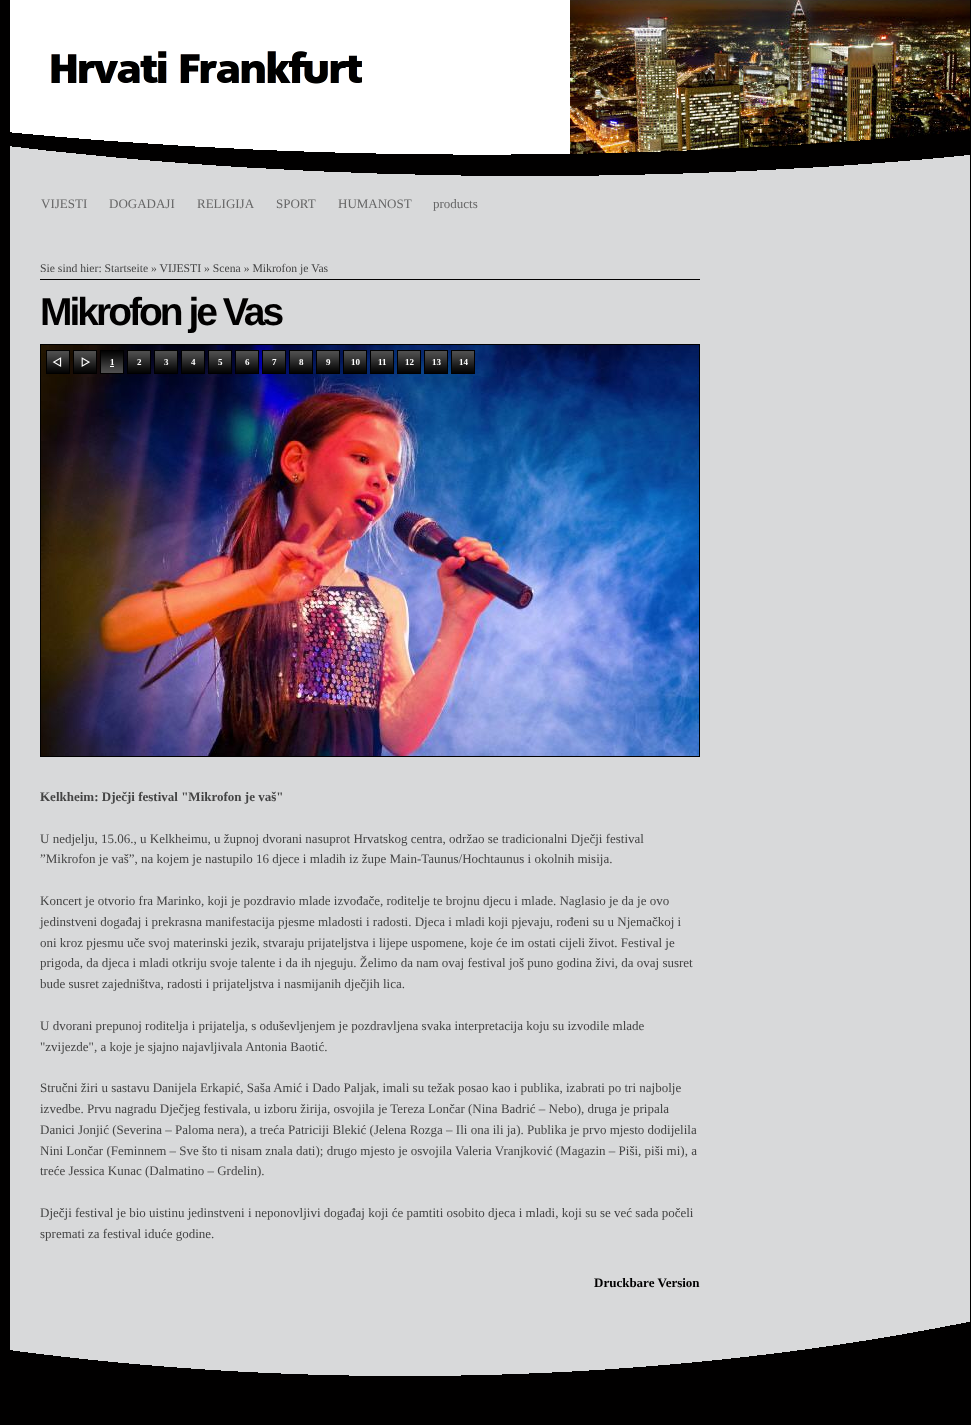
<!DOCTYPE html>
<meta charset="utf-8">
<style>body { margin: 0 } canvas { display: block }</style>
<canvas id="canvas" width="971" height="1425"></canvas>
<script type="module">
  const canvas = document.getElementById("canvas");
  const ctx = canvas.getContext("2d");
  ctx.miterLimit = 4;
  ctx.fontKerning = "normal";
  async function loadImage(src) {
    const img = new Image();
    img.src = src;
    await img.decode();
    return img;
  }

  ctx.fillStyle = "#010000";
  ctx.fillRect(0, 0, 971, 1425);
  ctx.fillStyle = "#ffffff";
  ctx.fillRect(10, 0, 560, 155);
  ctx.drawImage(await loadImage("img1.png"), 51, 51, 311, 33);
  ctx.drawImage(await loadImage("img2.png"), 570, 0, 400, 154);
  ctx.drawImage(await loadImage("img3.png"), 10, 131, 960, 45);
  ctx.fillStyle = "#d8d9da";
  ctx.fillRect(10, 176, 960, 1146);
  ctx.font = "13px Liberation Serif";
  ctx.fillStyle = "#666666";
  ctx.fillText("VIJESTI", 41, 208);
  ctx.fillText("DOGADAJI", 109, 208);
  ctx.fillText("RELIGIJA", 197, 208);
  ctx.fillText("SPORT", 276, 208);
  ctx.fillText("HUMANOST", 338, 208);
  ctx.fillText("products", 433, 208);
  ctx.fillStyle = "#010000";
  ctx.fillRect(40, 279, 660, 1);
  ctx.font = "11.7px Liberation Serif";
  ctx.fillStyle = "#444444";
  ctx.fillText("Sie sind hier: Startseite » VIJESTI » Scena » Mikrofon je Vas", 40, 272);
  ctx.letterSpacing = "-3px";
  ctx.font = "bold 39px Liberation Sans";
  ctx.fillStyle = "#010000";
  ctx.fillText("Mikrofon je Vas", 40, 325);
  ctx.strokeStyle = "#000000";
  ctx.strokeRect(40.5, 344.5, 659, 412);
  ctx.drawImage(await loadImage("img4.png"), 41, 345, 658, 411);
  ctx.drawImage(await loadImage("img6.png"), 46, 350, 51, 24);
  ctx.drawImage(await loadImage("img5.png"), 81, 357, 10, 10);
  ctx.drawImage(await loadImage("img7.png"), 100, 350, 24, 24);
  ctx.letterSpacing = "0px";
  ctx.font = "bold 9px Liberation Serif";
  ctx.fillStyle = "#ffffff";
  ctx.fillText("1", 110, 365);
  ctx.fillRect(110, 366, 4, 1);
  ctx.drawImage(await loadImage("img8.png"), 127, 350, 24, 24);
  ctx.fillText("2", 137, 365);
  ctx.drawImage(await loadImage("img8.png"), 154, 350, 24, 24);
  ctx.fillText("3", 164, 365);
  ctx.drawImage(await loadImage("img8.png"), 181, 350, 24, 24);
  ctx.fillText("4", 191, 365);
  ctx.drawImage(await loadImage("img8.png"), 208, 350, 24, 24);
  ctx.fillText("5", 218, 365);
  ctx.drawImage(await loadImage("img8.png"), 235, 350, 24, 24);
  ctx.fillText("6", 245, 365);
  ctx.drawImage(await loadImage("img8.png"), 262, 350, 24, 24);
  ctx.fillText("7", 272, 365);
  ctx.drawImage(await loadImage("img8.png"), 289, 350, 24, 24);
  ctx.fillText("8", 299, 365);
  ctx.drawImage(await loadImage("img8.png"), 316, 350, 24, 24);
  ctx.fillText("9", 326, 365);
  ctx.drawImage(await loadImage("img8.png"), 343, 350, 24, 24);
  ctx.fillText("10", 351, 365);
  ctx.drawImage(await loadImage("img8.png"), 370, 350, 24, 24);
  ctx.fillText("11", 378, 365);
  ctx.drawImage(await loadImage("img8.png"), 397, 350, 24, 24);
  ctx.fillText("12", 405, 365);
  ctx.drawImage(await loadImage("img8.png"), 424, 350, 24, 24);
  ctx.fillText("13", 432, 365);
  ctx.drawImage(await loadImage("img8.png"), 451, 350, 24, 24);
  ctx.fillText("14", 459, 365);
  ctx.font = "bold 13px Liberation Serif";
  ctx.fillStyle = "#444444";
  ctx.fillText("Kelkheim: Dječji festival \"Mikrofon je vaš\"", 40, 801);
  ctx.font = "13px Liberation Serif";
  ctx.fillText("U nedjelju, 15.06., u Kelkheimu, u župnoj dvorani nasuprot Hrvatskog centra, održao se tradicionalni Dječji festival", 40, 843);
  ctx.fillText("”Mikrofon je vaš”, na kojem je nastupilo 16 djece i mladih iz župe Main-Taunus/Hochtaunus i okolnih misija.", 40, 863);
  ctx.fillText("Koncert je otvorio fra Marinko, koji je pozdravio mlade izvođače, roditelje te brojnu djecu i mlade. Naglasio je da je ovo", 40, 905);
  ctx.fillText("jedinstveni događaj i prekrasna manifestacija pjesme mladosti i radosti. Djeca i mladi koji pjevaju, rođeni su u Njemačkoj i", 40, 926);
  ctx.fillText("oni kroz pjesmu uče svoj materinski jezik, stvaraju prijateljstva i lijepe uspomene, koje će im ostati cijeli život. Festival je", 40, 947);
  ctx.fillText("prigoda, da djeca i mladi otkriju svoje talente i da ih njeguju. Želimo da nam ovaj festival još puno godina živi, da ovaj susret", 40, 967);
  ctx.fillText("bude susret zajedništva, radosti i prijateljstva i nasmijanih dječjih lica.", 40, 988);
  ctx.fillText("U dvorani prepunoj roditelja i prijatelja, s oduševljenjem je pozdravljena svaka interpretacija koju su izvodile mlade", 40, 1030);
  ctx.fillText("\"zvijezde\", a koje je sjajno najavljivala Antonia Baotić.", 40, 1051);
  ctx.fillText("Stručni žiri u sastavu Danijela Erkapić, Saša Amić i Dado Paljak, imali su težak posao kao i publika, izabrati po tri najbolje", 40, 1092);
  ctx.fillText("izvedbe. Prvu nagradu Dječjeg festivala, u izboru žirija, osvojila je Tereza Lončar (Nina Badrić – Nebo), druga je pripala", 40, 1113);
  ctx.fillText("Danici Jonjić (Severina – Paloma nera), a treća Patriciji Blekić (Jelena Rozga – Ili ona ili ja). Publika je prvo mjesto dodijelila", 40, 1134);
  ctx.fillText("Nini Lončar (Feminnem – Sve što ti nisam znala dati); drugo mjesto je osvojila Valeria Vranjković (Magazin – Piši, piši mi), a", 40, 1155);
  ctx.fillText("treće Jessica Kunac (Dalmatino – Grdelin).", 40, 1175);
  ctx.fillText("Dječji festival je bio uistinu jedinstveni i neponovljivi događaj koji će pamtiti osobito djeca i mladi, koji su se već sada počeli", 40, 1217);
  ctx.fillText("spremati za festival iduće godine.", 40, 1238);
  ctx.font = "bold 13px Liberation Serif";
  ctx.fillStyle = "#010000";
  ctx.fillText("Druckbare Version", 594, 1287);
  ctx.drawImage(await loadImage("img9.png"), 10, 1322, 956, 54);
</script>
